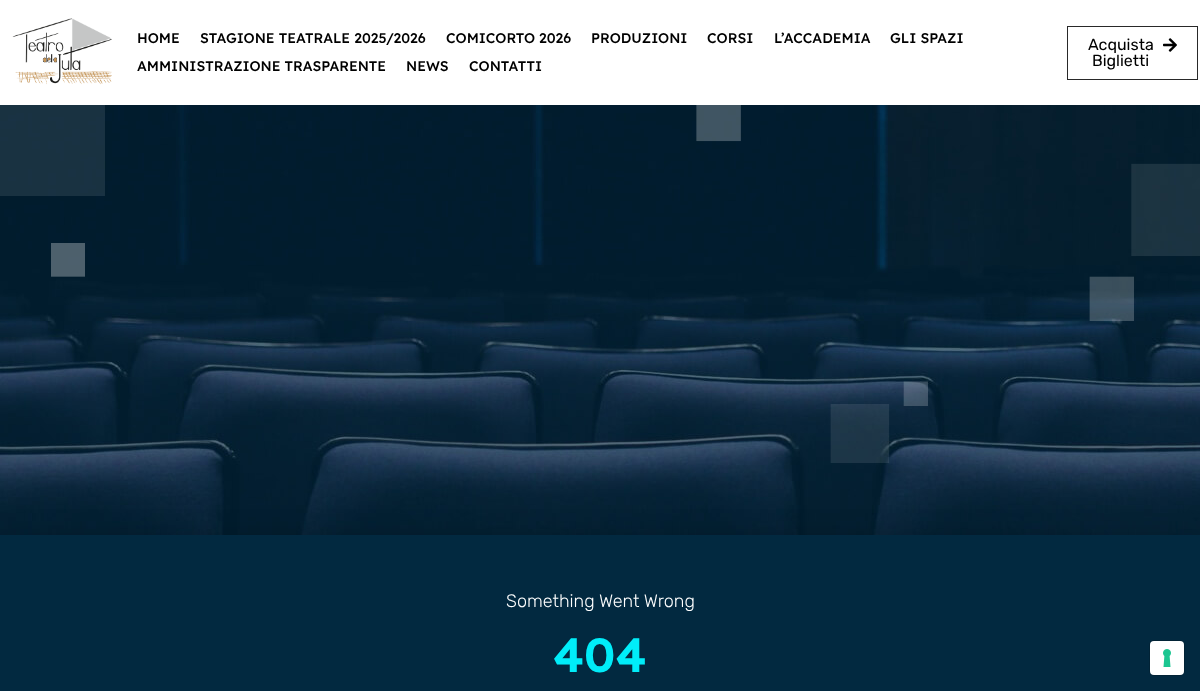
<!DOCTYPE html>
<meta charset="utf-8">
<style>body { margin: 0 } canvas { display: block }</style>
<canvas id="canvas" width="1200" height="691"></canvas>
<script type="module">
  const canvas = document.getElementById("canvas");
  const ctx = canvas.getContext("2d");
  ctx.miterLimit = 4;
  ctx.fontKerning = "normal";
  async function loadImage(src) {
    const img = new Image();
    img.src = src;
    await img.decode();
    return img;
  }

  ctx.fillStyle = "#ffffff";
  ctx.fillRect(0, 0, 1200, 691);
  ctx.drawImage(await loadImage("img1.png"), 12, 18, 100, 67);
  ctx.font = "500 14px Lexend";
  ctx.fillStyle = "#000000";
  ctx.fillText("HOME", 137, 43);
  ctx.fillText("STAGIONE TEATRALE 2025/2026", 200, 43);
  ctx.fillText("COMICORTO 2026", 446, 43);
  ctx.fillText("PRODUZIONI", 591, 43);
  ctx.fillText("CORSI", 707, 43);
  ctx.fillText("L’ACCADEMIA", 774, 43);
  ctx.fillText("GLI SPAZI", 890, 43);
  ctx.fillText("AMMINISTRAZIONE TRASPARENTE", 137, 71);
  ctx.fillText("NEWS", 406, 71);
  ctx.fillText("CONTATTI", 469, 71);
  ctx.strokeStyle = "#292929";
  ctx.strokeRect(1067.5, 26.5, 130, 53);
  ctx.font = "16px Rubik";
  ctx.fillText("Acquista", 1088, 50);
  ctx.fillText("Biglietti", 1092, 66);
  ctx.drawImage(await loadImage("img2.png"), 1163, 38, 14, 14);
  ctx.drawImage(await loadImage("img3.png"), 0, 105, 1200, 430);
  ctx.drawImage(await loadImage("img4.png"), 0, 105, 1200, 358);
  ctx.fillStyle = "rgba(0, 0, 0, 0.2)";
  ctx.filter = "blur(15px)";
  ctx.beginPath();
  ctx.rect(0, 540, 1200, 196);
  ctx.fill();
  ctx.filter = "none";
  ctx.fillStyle = "#022940";
  ctx.fillRect(0, 535, 1200, 156);
  ctx.font = "300 18px Rubik";
  ctx.fillStyle = "#ffffff";
  ctx.fillText("Something Went Wrong", 506, 607);
  ctx.font = "600 48px Lexend";
  ctx.fillStyle = "#00edf9";
  ctx.fillText("404", 553, 672);
  ctx.beginPath();
  ctx.roundRect(1149.5, 640.5, 35, 35, 4.5);
  ctx.strokeStyle = "#022336";
  ctx.stroke();
  ctx.fillStyle = "#ffffff";
  ctx.beginPath();
  ctx.roundRect(1150, 641, 34, 34, 4);
  ctx.fill();
  ctx.drawImage(await loadImage("img5.png"), 1163, 649, 8, 18);
</script>
